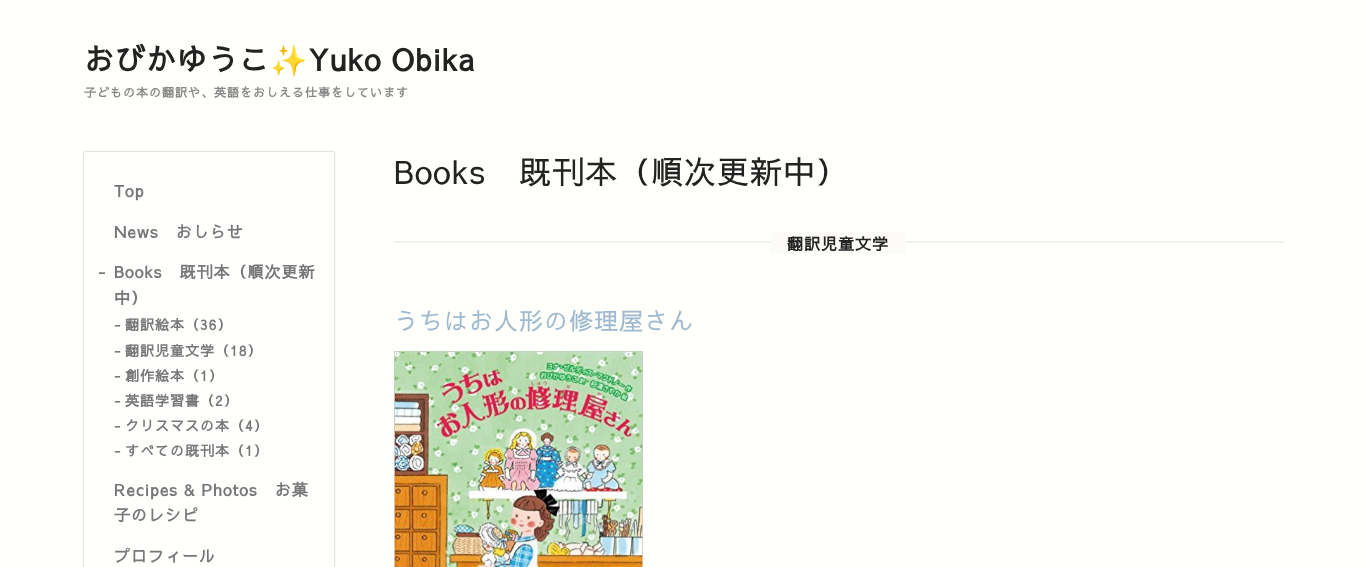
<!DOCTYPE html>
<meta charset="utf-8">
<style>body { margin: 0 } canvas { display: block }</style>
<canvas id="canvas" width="1367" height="567"></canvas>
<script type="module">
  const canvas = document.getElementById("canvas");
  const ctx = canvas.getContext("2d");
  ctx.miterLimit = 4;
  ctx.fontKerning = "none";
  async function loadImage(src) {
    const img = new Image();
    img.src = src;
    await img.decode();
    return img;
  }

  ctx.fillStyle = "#fffffb";
  ctx.fillRect(0, 0, 1367, 567);
  ctx.letterSpacing = "1px";
  ctx.font = "bold 30px Sawarabi Gothic";
  ctx.fillStyle = "#222222";
  ctx.fillText("おびかゆうこ", 84, 71);
  ctx.font = "bold 30px Noto Color Emoji";
  ctx.fillText("✨", 270, 71);
  ctx.font = "bold 30px Sawarabi Gothic";
  ctx.fillText("Yuko Obika", 308, 71);
  ctx.font = "bold 12px Sawarabi Gothic";
  ctx.fillStyle = "#888888";
  ctx.fillText("子どもの本の翻訳や、英語をおしえる仕事をしています", 84, 97);
  ctx.fillStyle = "rgba(0, 0, 0, 0.3)";
  ctx.filter = "blur(1px)";
  ctx.beginPath();
  ctx.rect(84, 152, 250, 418);
  ctx.fill();
  ctx.filter = "none";
  ctx.fillStyle = "#fffffe";
  ctx.fillRect(84, 152, 250, 415);
  ctx.font = "bold 16px Sawarabi Gothic";
  ctx.fillStyle = "#777777";
  ctx.fillText("Top", 114, 197);
  ctx.fillText("News　おしらせ", 114, 238);
  ctx.fillText("-", 98, 278);
  ctx.fillText("Books　既刊本（順次更新", 114, 278);
  ctx.fillText("中）", 114, 304);
  ctx.font = "bold 14px Sawarabi Gothic";
  ctx.fillText("-", 114, 330);
  ctx.fillText("翻訳絵本（36）", 125, 330);
  ctx.fillText("-", 114, 356);
  ctx.fillText("翻訳児童文学（18）", 125, 356);
  ctx.fillText("-", 114, 381);
  ctx.fillText("創作絵本（1）", 125, 381);
  ctx.fillText("-", 114, 406);
  ctx.fillText("英語学習書（2）", 125, 406);
  ctx.fillText("-", 114, 431);
  ctx.fillText("クリスマスの本（4）", 125, 431);
  ctx.fillText("-", 114, 456);
  ctx.fillText("すべての既刊本（1）", 125, 456);
  ctx.font = "bold 16px Sawarabi Gothic";
  ctx.fillText("Recipes & Photos　お菓", 114, 496);
  ctx.fillText("子のレシピ", 114, 521);
  ctx.fillText("プロフィール", 114, 562);
  ctx.font = "32px Sawarabi Gothic";
  ctx.fillStyle = "#222222";
  ctx.fillText("Books　既刊本（順次更新中）", 394, 184);
  ctx.fillStyle = "#f1f1ee";
  ctx.fillRect(394, 241, 890, 2);
  ctx.fillStyle = "#fcfbf8";
  ctx.fillRect(771, 232, 135, 22);
  ctx.font = "bold 16px Sawarabi Gothic";
  ctx.fillStyle = "#222222";
  ctx.fillText("翻訳児童文学", 787, 250);
  ctx.font = "24px Sawarabi Gothic";
  ctx.fillStyle = "#9fbacf";
  ctx.fillText("うちはお人形の修理屋さん", 394, 330);
  ctx.drawImage(await loadImage("img1.png"), 394, 351, 249, 216);
</script>
